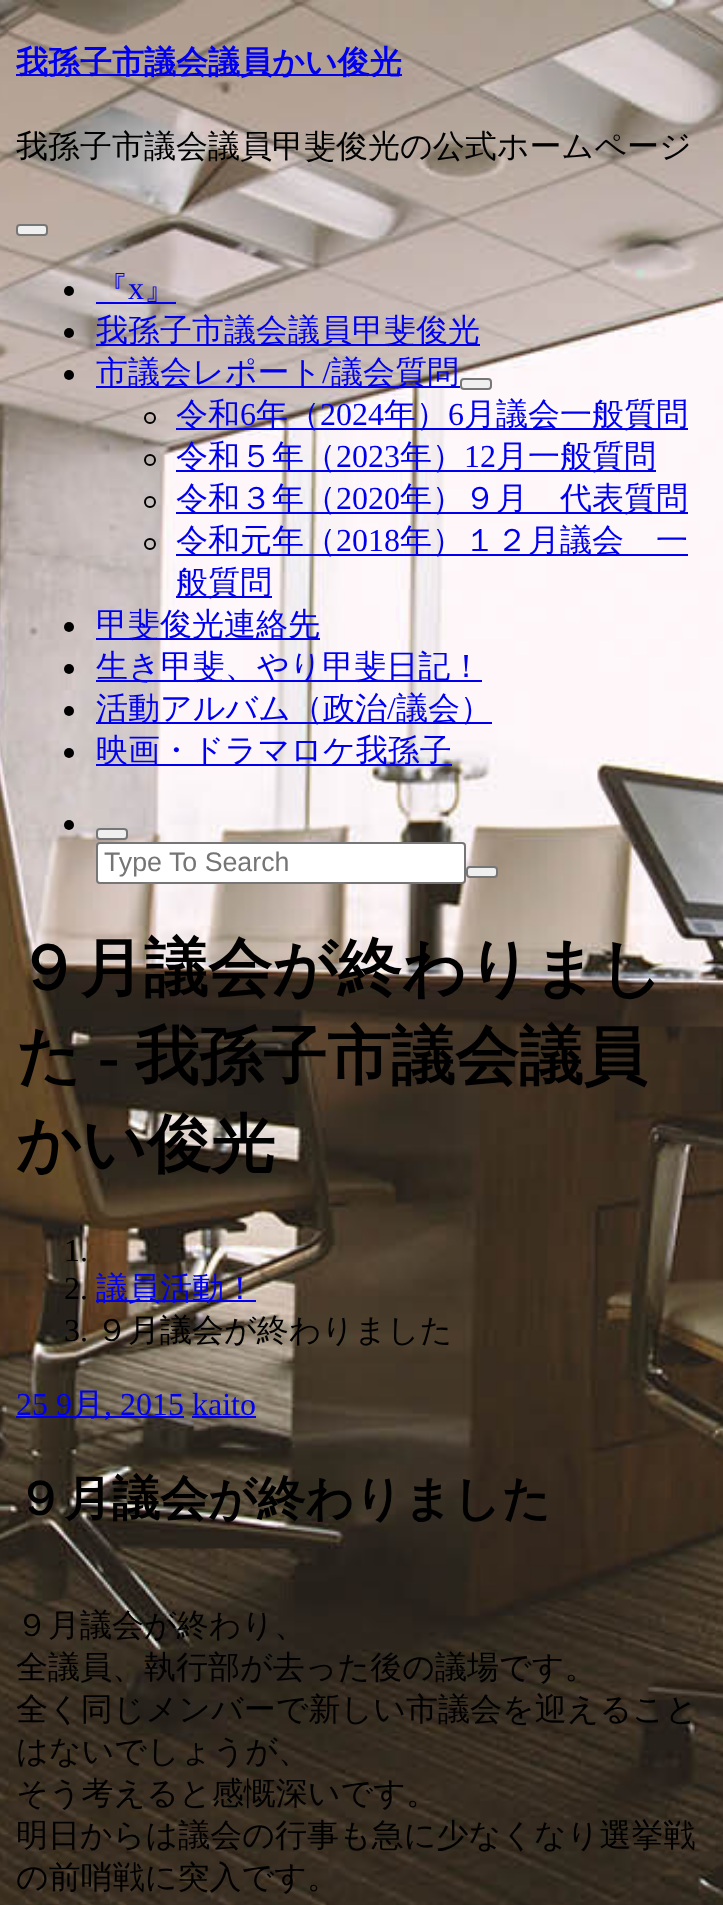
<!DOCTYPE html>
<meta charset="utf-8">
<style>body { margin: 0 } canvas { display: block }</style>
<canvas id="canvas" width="723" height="1905"></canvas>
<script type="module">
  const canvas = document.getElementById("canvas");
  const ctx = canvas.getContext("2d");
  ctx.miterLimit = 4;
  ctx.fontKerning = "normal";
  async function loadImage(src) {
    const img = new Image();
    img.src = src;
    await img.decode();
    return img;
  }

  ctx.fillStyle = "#ffffff";
  ctx.fillRect(0, 0, 723, 1905);
  ctx.drawImage(await loadImage("img1.png"), 0, 0, 723, 1905);
  ctx.fillStyle = "#0000ee";
  ctx.fillRect(16, 74, 386, 2);
  ctx.font = "bold 32px WenQuanYi Zen Hei";
  ctx.fillText("我孫子市議会議員かい俊光", 16, 73);
  ctx.font = "500 32px WenQuanYi Zen Hei";
  ctx.fillStyle = "#000000";
  ctx.fillText("我孫子市議会議員甲斐俊光の公式ホームページ", 16, 157);
  ctx.fillStyle = "#efefef";
  ctx.beginPath();
  ctx.roundRect(17, 225, 30, 10, 3);
  ctx.fill();
  ctx.strokeStyle = "#767676";
  ctx.lineWidth = 2;
  ctx.stroke();
  ctx.fillStyle = "#0000ee";
  ctx.fillText("『", 96, 299);
  ctx.fillStyle = "#000000";
  ctx.beginPath();
  ctx.arc(69, 291, 5, 0, Math.PI * 2);
  ctx.fill();
  ctx.font = "32px Liberation Serif";
  ctx.fillStyle = "#0000ee";
  ctx.fillText("x", 128, 299);
  ctx.font = "500 32px WenQuanYi Zen Hei";
  ctx.fillText("』", 144, 299);
  ctx.fillRect(96, 302, 80, 2);
  ctx.fillStyle = "#000000";
  ctx.beginPath();
  ctx.arc(69, 333, 5, 0, Math.PI * 2);
  ctx.fill();
  ctx.fillStyle = "#0000ee";
  ctx.fillRect(96, 344, 384, 2);
  ctx.fillText("我孫子市議会議員甲斐俊光", 96, 341);
  ctx.fillStyle = "#000000";
  ctx.beginPath();
  ctx.arc(69, 375, 5, 0, Math.PI * 2);
  ctx.fill();
  ctx.fillStyle = "#0000ee";
  ctx.fillRect(96, 386, 364, 2);
  ctx.fillText("市議会レポート", 96, 383);
  ctx.font = "32px Liberation Serif";
  ctx.fillText("/", 322, 383);
  ctx.font = "500 32px WenQuanYi Zen Hei";
  ctx.fillText("議会質問", 331, 383);
  ctx.fillStyle = "#efefef";
  ctx.beginPath();
  ctx.roundRect(461, 379, 30, 10, 3);
  ctx.fill();
  ctx.stroke();
  ctx.beginPath();
  ctx.arc(150, 418, 5, 0, Math.PI * 2);
  ctx.strokeStyle = "#000000";
  ctx.stroke();
  ctx.fillStyle = "#0000ee";
  ctx.fillRect(176, 428, 512, 2);
  ctx.fillText("令和", 176, 425);
  ctx.font = "32px Liberation Serif";
  ctx.fillText("6", 240, 425);
  ctx.font = "500 32px WenQuanYi Zen Hei";
  ctx.fillText("年（", 256, 425);
  ctx.font = "32px Liberation Serif";
  ctx.fillText("2024", 320, 425);
  ctx.font = "500 32px WenQuanYi Zen Hei";
  ctx.fillText("年）", 384, 425);
  ctx.font = "32px Liberation Serif";
  ctx.fillText("6", 448, 425);
  ctx.font = "500 32px WenQuanYi Zen Hei";
  ctx.fillText("月議会一般質問", 464, 425);
  ctx.beginPath();
  ctx.arc(150, 460, 5, 0, Math.PI * 2);
  ctx.stroke();
  ctx.fillRect(176, 470, 480, 2);
  ctx.fillText("令和５年（", 176, 467);
  ctx.font = "32px Liberation Serif";
  ctx.fillText("2023", 336, 467);
  ctx.font = "500 32px WenQuanYi Zen Hei";
  ctx.fillText("年）", 400, 467);
  ctx.font = "32px Liberation Serif";
  ctx.fillText("12", 464, 467);
  ctx.font = "500 32px WenQuanYi Zen Hei";
  ctx.fillText("月一般質問", 496, 467);
  ctx.beginPath();
  ctx.arc(150, 502, 5, 0, Math.PI * 2);
  ctx.stroke();
  ctx.fillRect(176, 512, 512, 2);
  ctx.fillText("令和３年（", 176, 509);
  ctx.font = "32px Liberation Serif";
  ctx.fillText("2020", 336, 509);
  ctx.font = "500 32px WenQuanYi Zen Hei";
  ctx.fillText("年）９月　代表質問", 400, 509);
  ctx.beginPath();
  ctx.arc(150, 544, 5, 0, Math.PI * 2);
  ctx.stroke();
  ctx.fillRect(176, 554, 512, 2);
  ctx.fillText("令和元年（", 176, 551);
  ctx.font = "32px Liberation Serif";
  ctx.fillText("2018", 336, 551);
  ctx.font = "500 32px WenQuanYi Zen Hei";
  ctx.fillText("年）１２月議会　一", 400, 551);
  ctx.fillRect(176, 596, 96, 2);
  ctx.fillText("般質問", 176, 593);
  ctx.fillStyle = "#000000";
  ctx.beginPath();
  ctx.arc(69, 627, 5, 0, Math.PI * 2);
  ctx.fill();
  ctx.fillStyle = "#0000ee";
  ctx.fillRect(96, 638, 224, 2);
  ctx.fillText("甲斐俊光連絡先", 96, 635);
  ctx.fillStyle = "#000000";
  ctx.beginPath();
  ctx.arc(69, 669, 5, 0, Math.PI * 2);
  ctx.fill();
  ctx.fillStyle = "#0000ee";
  ctx.fillRect(96, 680, 386, 2);
  ctx.fillText("生き甲斐、やり甲斐日記！", 96, 677);
  ctx.fillStyle = "#000000";
  ctx.beginPath();
  ctx.arc(69, 711, 5, 0, Math.PI * 2);
  ctx.fill();
  ctx.fillStyle = "#0000ee";
  ctx.fillRect(96, 722, 396, 2);
  ctx.fillText("活動アルバム（政治", 96, 719);
  ctx.font = "32px Liberation Serif";
  ctx.fillText("/", 387, 719);
  ctx.font = "500 32px WenQuanYi Zen Hei";
  ctx.fillText("議会）", 396, 719);
  ctx.fillStyle = "#000000";
  ctx.beginPath();
  ctx.arc(69, 753, 5, 0, Math.PI * 2);
  ctx.fill();
  ctx.fillStyle = "#0000ee";
  ctx.fillRect(96, 764, 356, 2);
  ctx.fillText("映画・ドラマロケ我孫子", 96, 761);
  ctx.fillStyle = "#000000";
  ctx.beginPath();
  ctx.arc(69, 825, 5, 0, Math.PI * 2);
  ctx.fill();
  ctx.fillStyle = "#efefef";
  ctx.beginPath();
  ctx.roundRect(97, 829, 30, 10, 3);
  ctx.fill();
  ctx.strokeStyle = "#767676";
  ctx.stroke();
  ctx.fillStyle = "#ffffff";
  ctx.beginPath();
  ctx.roundRect(97, 843, 368, 40, 3);
  ctx.fill();
  ctx.stroke();
  ctx.font = "26.75px Liberation Sans";
  ctx.fillStyle = "#757575";
  ctx.fillText("Type To Search", 104, 871);
  ctx.fillStyle = "#efefef";
  ctx.beginPath();
  ctx.roundRect(467, 867, 30, 10, 3);
  ctx.fill();
  ctx.stroke();
  ctx.font = "bold 64px WenQuanYi Zen Hei";
  ctx.fillStyle = "#000000";
  ctx.fillText("９月議会が終わりまし", 16, 990);
  ctx.fillText("た", 16, 1078);
  ctx.font = "bold 64px Liberation Serif";
  ctx.fillText("-", 98, 1078);
  ctx.font = "bold 64px WenQuanYi Zen Hei";
  ctx.fillText("我孫子市議会議員", 135, 1078);
  ctx.fillText("かい俊光", 16, 1166);
  ctx.font = "32px Liberation Serif";
  ctx.fillText("1.", 64, 1261);
  ctx.fillText("2.", 64, 1299);
  ctx.fillStyle = "#0000ee";
  ctx.fillRect(96, 1300, 160, 2);
  ctx.font = "500 32px WenQuanYi Zen Hei";
  ctx.fillText("議員活動！", 96, 1299);
  ctx.font = "32px Liberation Serif";
  ctx.fillStyle = "#000000";
  ctx.fillText("3.", 64, 1341);
  ctx.font = "500 32px WenQuanYi Zen Hei";
  ctx.fillText("９月議会が終わりました", 96, 1341);
  ctx.font = "32px Liberation Serif";
  ctx.fillStyle = "#0000ee";
  ctx.fillText("25 9", 16, 1415);
  ctx.fillRect(16, 1416, 168, 2);
  ctx.font = "500 32px WenQuanYi Zen Hei";
  ctx.fillText("月", 72, 1415);
  ctx.font = "32px Liberation Serif";
  ctx.fillText(", 2015 kaito", 104, 1415);
  ctx.fillRect(192, 1416, 64, 2);
  ctx.font = "bold 48px WenQuanYi Zen Hei";
  ctx.fillStyle = "#000000";
  ctx.fillText("９月議会が終わりました", 16, 1515);
  ctx.font = "500 32px WenQuanYi Zen Hei";
  ctx.fillText("９月議会が終わり、", 16, 1636);
  ctx.fillText("全議員、執行部が去った後の議場です。", 16, 1678);
  ctx.fillText("全く同じメンバーで新しい市議会を迎えること", 16, 1720);
  ctx.fillText("はないでしょうが、", 16, 1762);
  ctx.fillText("そう考えると感慨深いです。", 16, 1804);
  ctx.fillText("明日からは議会の行事も急に少なくなり選挙戦", 16, 1846);
  ctx.fillText("の前哨戦に突入です。", 16, 1888);
</script>
